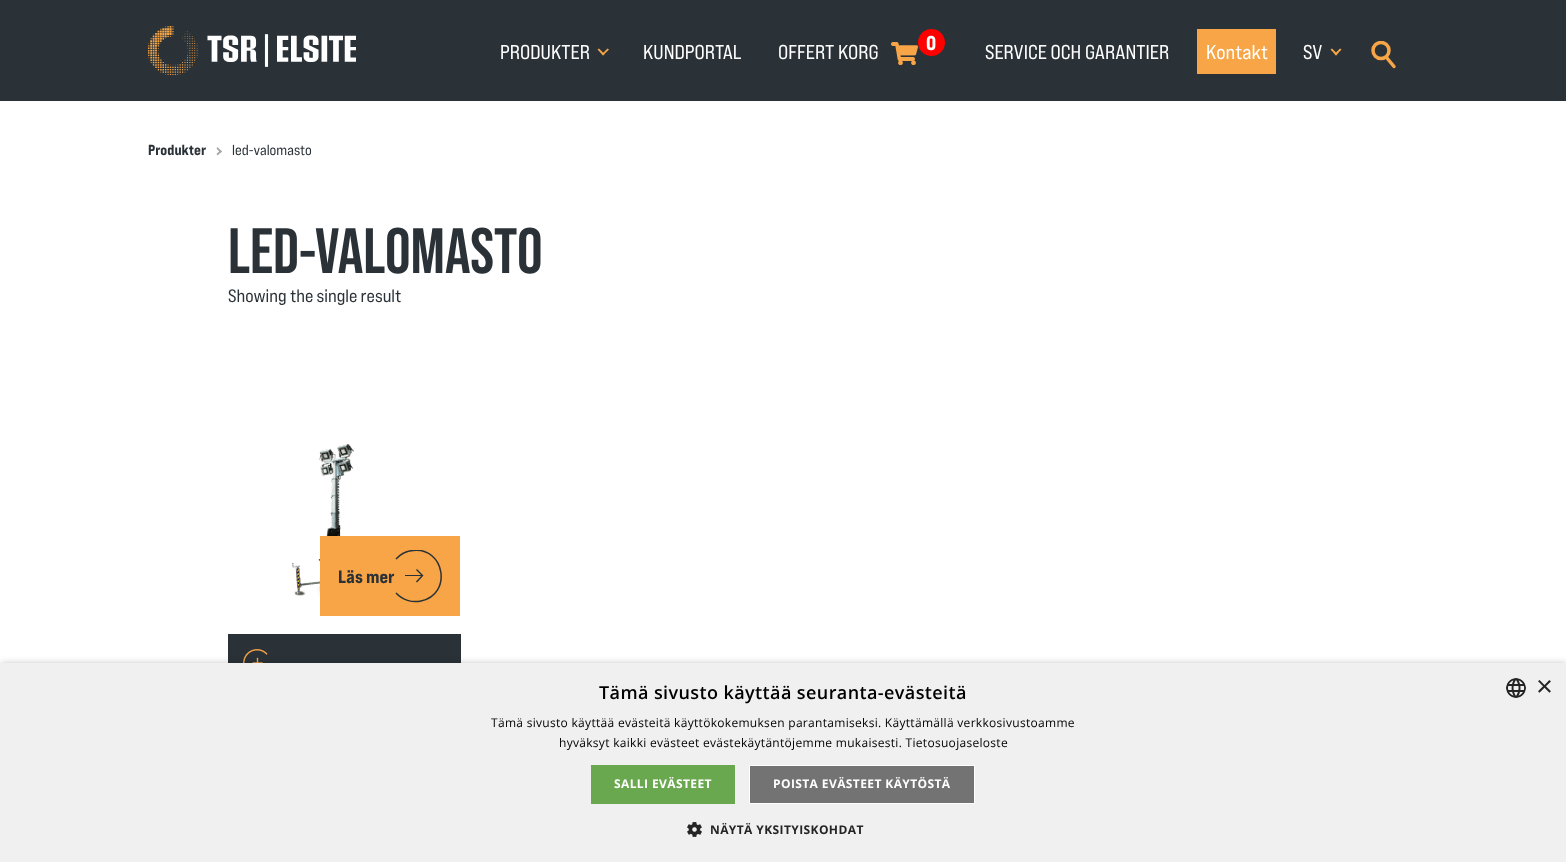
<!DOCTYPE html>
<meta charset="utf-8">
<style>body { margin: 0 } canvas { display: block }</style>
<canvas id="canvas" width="1566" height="862"></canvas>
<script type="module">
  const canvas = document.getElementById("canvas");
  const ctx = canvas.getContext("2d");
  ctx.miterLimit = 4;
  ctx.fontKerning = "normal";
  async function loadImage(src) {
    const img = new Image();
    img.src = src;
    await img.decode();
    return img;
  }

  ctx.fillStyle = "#ffffff";
  ctx.fillRect(0, 0, 1566, 862);
  ctx.fillStyle = "#2a3238";
  ctx.fillRect(0, 0, 1566, 101);
  ctx.drawImage(await loadImage("img1.png"), 148, 26, 208, 49);
  ctx.font = "20px Bebas Neue";
  ctx.fillStyle = "#ffffff";
  ctx.fillText("PRODUKTER", 500, 59);
  ctx.fillStyle = "#f7a546";
  ctx.beginPath();
  ctx.moveTo(602, 54);
  ctx.lineTo(607.5, 48.5);
  ctx.lineTo(609, 49.5);
  ctx.lineTo(603, 55.5);
  ctx.closePath();
  ctx.fill();
  ctx.beginPath();
  ctx.moveTo(597.5, 49.5);
  ctx.lineTo(599, 48.5);
  ctx.lineTo(604.5, 54);
  ctx.lineTo(603, 55.5);
  ctx.closePath();
  ctx.fill();
  ctx.fillStyle = "#ffffff";
  ctx.fillText("KUNDPORTAL", 643, 59);
  ctx.fillText("OFFERT KORG", 778, 59);
  ctx.drawImage(await loadImage("img2.png"), 891, 42, 27, 23);
  ctx.fillStyle = "#ff0000";
  ctx.beginPath();
  ctx.arc(931.5, 42.5, 13.5, 0, Math.PI * 2);
  ctx.fill();
  ctx.font = "800 20px Bebas Neue";
  ctx.fillStyle = "#ffffff";
  ctx.fillText("0", 926, 50);
  ctx.font = "20px Bebas Neue";
  ctx.fillText("SERVICE OCH GARANTIER", 985, 59);
  ctx.fillStyle = "#f7a546";
  ctx.fillRect(1197, 29, 79, 45);
  ctx.fillStyle = "#ffffff";
  ctx.fillText("Kontakt", 1206, 59);
  ctx.fillText("SV", 1303, 59);
  ctx.fillStyle = "#f7a546";
  ctx.beginPath();
  ctx.moveTo(1334.5, 54);
  ctx.lineTo(1340, 48.5);
  ctx.lineTo(1341.5, 49.5);
  ctx.lineTo(1336, 55.5);
  ctx.closePath();
  ctx.fill();
  ctx.beginPath();
  ctx.moveTo(1330.5, 49.5);
  ctx.lineTo(1332, 48.5);
  ctx.lineTo(1337.5, 54);
  ctx.lineTo(1336, 55.5);
  ctx.closePath();
  ctx.fill();
  ctx.save();
  ctx.beginPath();
  ctx.rect(1369, 41, 29, 27);
  ctx.clip();
  ctx.beginPath();
  ctx.arc(1381, 50.5, 8, 0, Math.PI * 2);
  ctx.strokeStyle = "#f7a546";
  ctx.lineWidth = 3.5;
  ctx.stroke();
  ctx.restore();
  ctx.beginPath();
  ctx.moveTo(1386.5, 57.5);
  ctx.lineTo(1394, 66.5);
  ctx.strokeStyle = "#f7a546";
  ctx.lineWidth = 3.5;
  ctx.lineCap = "round";
  ctx.lineJoin = "round";
  ctx.stroke();
  ctx.font = "800 14.5px Bebas Neue";
  ctx.fillStyle = "#2a3238";
  ctx.fillText("Produkter", 148, 155);
  ctx.fillStyle = "#a6a8a9";
  ctx.beginPath();
  ctx.moveTo(216.5, 148.5);
  ctx.lineTo(217.5, 147);
  ctx.lineTo(222, 151.5);
  ctx.lineTo(220.5, 153);
  ctx.closePath();
  ctx.fill();
  ctx.beginPath();
  ctx.moveTo(216.5, 154);
  ctx.lineTo(220.5, 150);
  ctx.lineTo(222, 151.5);
  ctx.lineTo(217.5, 155.5);
  ctx.closePath();
  ctx.fill();
  ctx.font = "14.5px Bebas Neue";
  ctx.fillStyle = "#2a3238";
  ctx.fillText("led-valomasto", 232, 155);
  ctx.font = "bold 64px Bebas Neue";
  ctx.fillText("LED-VALOMASTO", 228, 273);
  ctx.font = "18px Bebas Neue";
  ctx.fillText("Showing the single result", 228, 302);
  ctx.drawImage(await loadImage("img3.png"), 292, 444, 62, 152);
  ctx.fillStyle = "#f7a546";
  ctx.fillRect(320, 536, 140, 80);
  ctx.font = "800 18px Bebas Neue";
  ctx.fillStyle = "#2a3238";
  ctx.fillText("Läs mer", 338, 583);
  ctx.beginPath();
  ctx.moveTo(416.5, 569.5);
  ctx.lineTo(422.5, 575.5);
  ctx.lineTo(416.5, 582);
  ctx.strokeStyle = "#2a3238";
  ctx.lineWidth = 1.4;
  ctx.lineCap = "butt";
  ctx.lineJoin = "miter";
  ctx.stroke();
  ctx.fillRect(405, 575, 18, 1);
  ctx.save();
  ctx.beginPath();
  ctx.rect(389, 550, 53, 53);
  ctx.clip();
  ctx.beginPath();
  ctx.moveTo(396, 559);
  ctx.bezierCurveTo(400.5, 554, 406.5, 551, 413, 550.5);
  ctx.bezierCurveTo(445, 547, 452.5, 594.5, 421, 601);
  ctx.bezierCurveTo(412, 603, 402.5, 600, 396, 593);
  ctx.lineWidth = 1.5;
  ctx.stroke();
  ctx.restore();
  ctx.fillRect(228, 634, 233, 29);
  ctx.drawImage(await loadImage("img4.png"), 243, 649, 25, 14);
  ctx.fillStyle = "rgba(0, 0, 0, 0.35)";
  ctx.filter = "blur(4px)";
  ctx.beginPath();
  ctx.rect(1, 665, 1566, 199);
  ctx.fill();
  ctx.filter = "none";
  ctx.fillStyle = "#f0f0f0";
  ctx.fillRect(0, 663, 1566, 199);
  ctx.letterSpacing = "0.4px";
  ctx.font = "600 18px Open Sans";
  ctx.fillStyle = "#000000";
  ctx.fillText("Tämä sivusto käyttää seuranta-evästeitä", 599, 699);
  ctx.drawImage(await loadImage("img5.png"), 1506, 678, 20, 20);
  ctx.letterSpacing = "0px";
  ctx.font = "29px Liberation Sans";
  ctx.fillStyle = "#242424";
  ctx.fillText("×", 1536, 696);
  ctx.letterSpacing = "0.3px";
  ctx.font = "12px Open Sans";
  ctx.fillStyle = "#000000";
  ctx.fillText("Tämä sivusto käyttää evästeitä käyttökokemuksen parantamiseksi. Käyttämällä verkkosivustoamme", 491, 727);
  ctx.fillText("hyväksyt kaikki evästeet evästekäytäntöjemme mukaisesti. Tietosuojaseloste", 559, 747);
  ctx.fillStyle = "#6aa84f";
  ctx.fillRect(591, 765, 144, 39);
  ctx.letterSpacing = "0.4px";
  ctx.font = "bold 12px Open Sans";
  ctx.fillStyle = "#ffffff";
  ctx.fillText("SALLI EVÄSTEET", 614, 788);
  ctx.fillStyle = "#737373";
  ctx.beginPath();
  ctx.rect(749.5, 765.5, 225, 38);
  ctx.fill();
  ctx.strokeStyle = "#ffffff";
  ctx.lineWidth = 1;
  ctx.stroke();
  ctx.fillStyle = "#ffffff";
  ctx.fillText("POISTA EVÄSTEET KÄYTÖSTÄ", 773, 788);
  ctx.drawImage(await loadImage("img6.png"), 687, 822, 15, 15);
  ctx.fillStyle = "#242424";
  ctx.fillText("NÄYTÄ YKSITYISKOHDAT", 710, 834);
</script>
